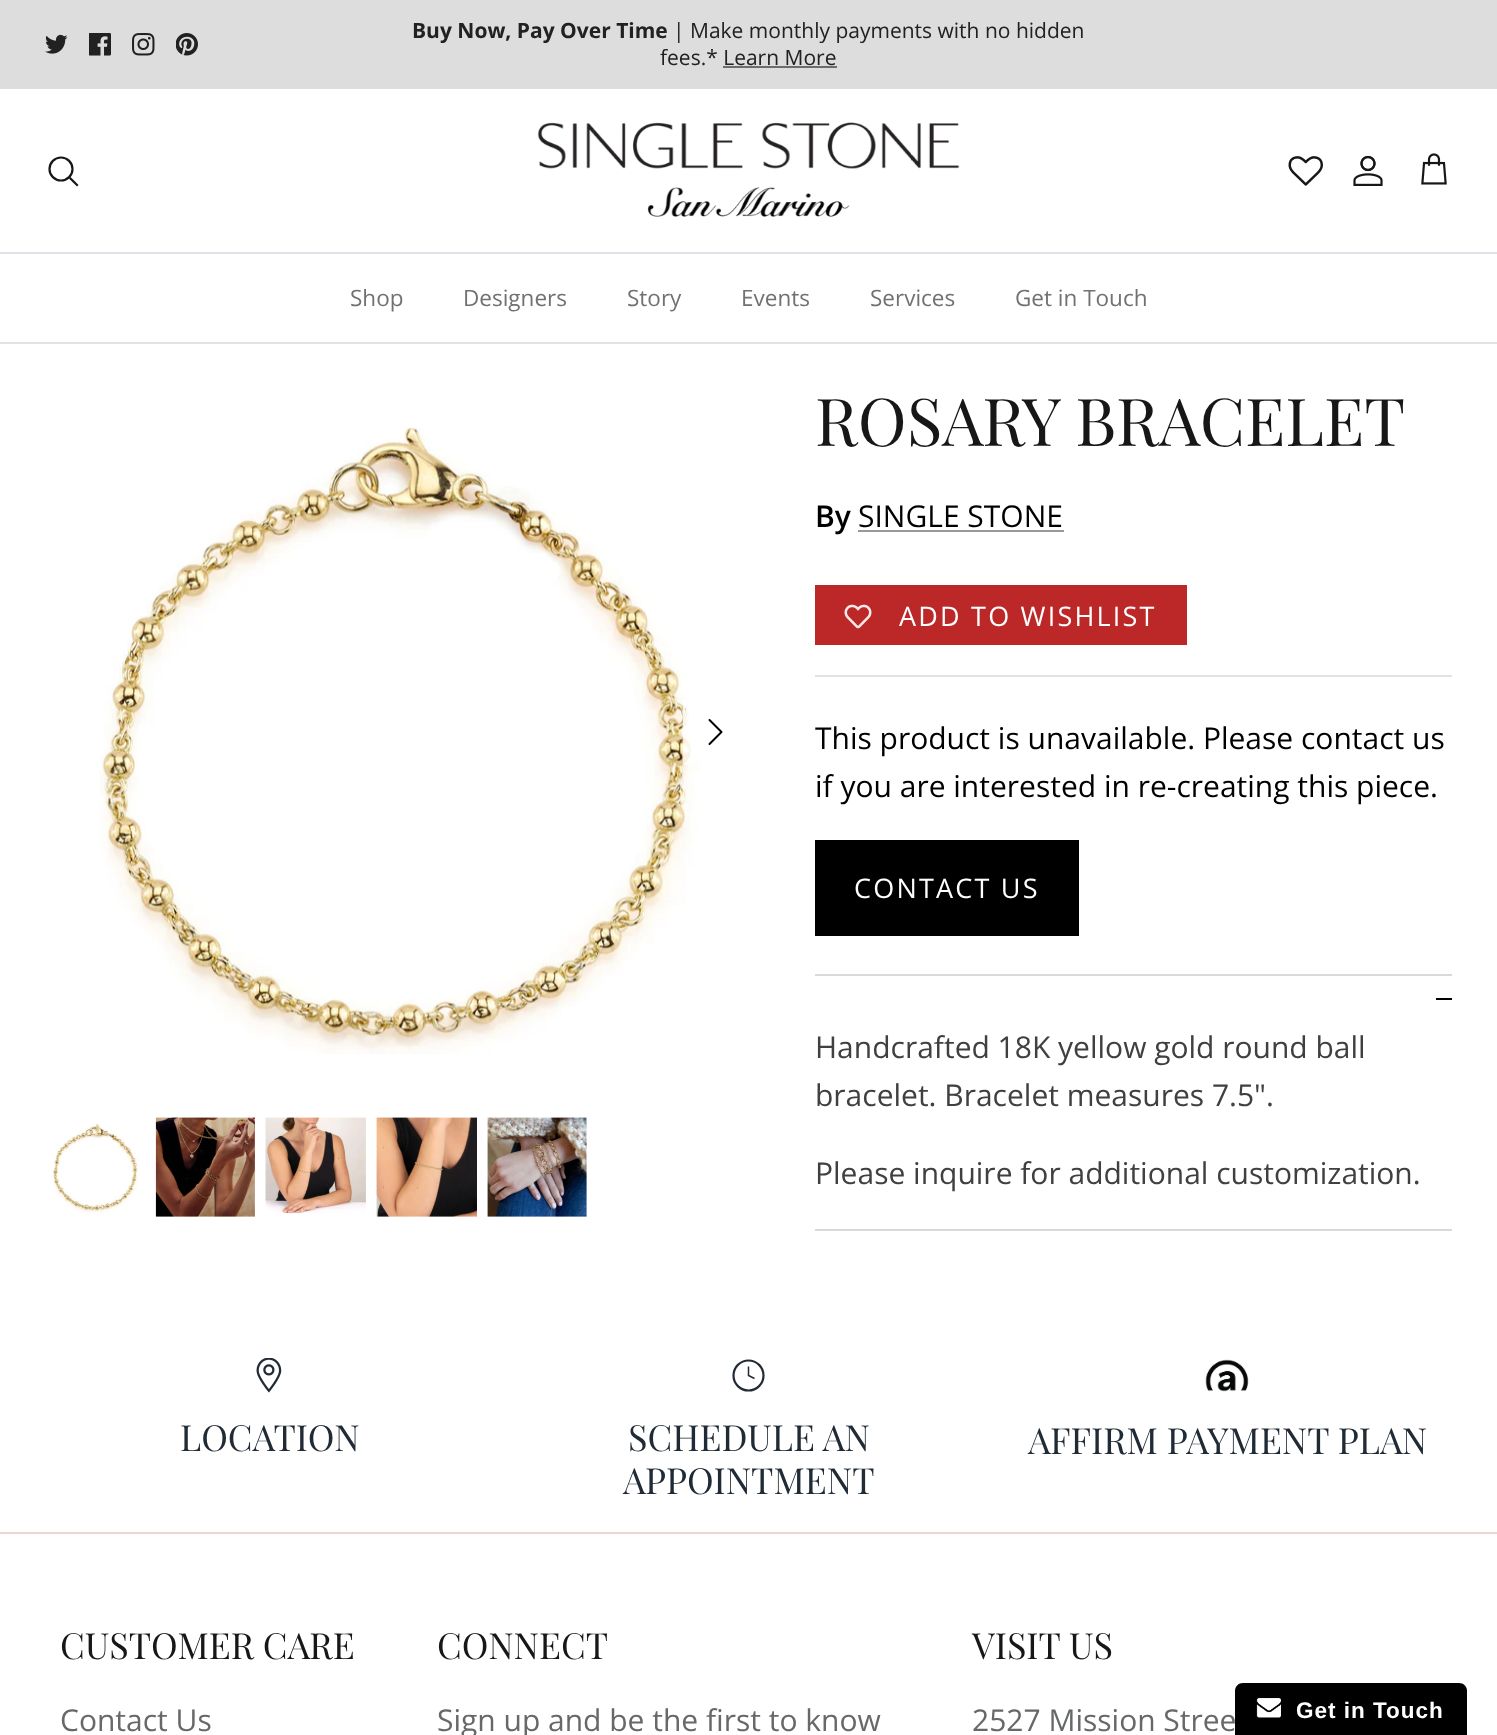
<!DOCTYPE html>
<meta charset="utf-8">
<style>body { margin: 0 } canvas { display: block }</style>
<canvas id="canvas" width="1497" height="1735"></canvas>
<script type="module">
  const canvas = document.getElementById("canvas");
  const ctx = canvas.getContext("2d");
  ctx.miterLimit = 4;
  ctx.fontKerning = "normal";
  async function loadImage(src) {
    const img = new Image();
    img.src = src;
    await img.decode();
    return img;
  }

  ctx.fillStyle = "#ffffff";
  ctx.fillRect(0, 0, 1497, 1735);
  ctx.fillStyle = "#dddddd";
  ctx.fillRect(0, 0, 1497, 89);
  ctx.drawImage(await loadImage("img1.png"), 45, 34, 23, 20);
  ctx.drawImage(await loadImage("img2.png"), 89, 33, 22, 23);
  ctx.drawImage(await loadImage("img3.png"), 132, 33, 23, 23);
  ctx.drawImage(await loadImage("img4.png"), 176, 33, 22, 23);
  ctx.font = "bold 21px Open Sans";
  ctx.fillStyle = "#212121";
  ctx.fillText("Buy Now, Pay Over Time", 412, 38);
  ctx.font = "21px Open Sans";
  ctx.fillText("| Make monthly payments with no hidden", 673, 38);
  ctx.fillText("fees.* Learn More", 660, 65);
  ctx.fillStyle = "#6c6c6c";
  ctx.fillRect(723, 66, 114, 2);
  ctx.fillStyle = "#dfe3e8";
  ctx.fillRect(0, 252, 1497, 2);
  ctx.beginPath();
  ctx.arc(61, 169, 11.5, 0, Math.PI * 2);
  ctx.strokeStyle = "#171717";
  ctx.lineWidth = 2.2;
  ctx.stroke();
  ctx.beginPath();
  ctx.moveTo(70.5, 178.5);
  ctx.lineTo(77, 185);
  ctx.lineCap = "square";
  ctx.stroke();
  ctx.drawImage(await loadImage("img5.png"), 537, 122, 423, 95);
  ctx.drawImage(await loadImage("img6.png"), 1288, 156, 35, 30);
  ctx.drawImage(await loadImage("img7.png"), 1353, 155, 30, 31);
  ctx.drawImage(await loadImage("img8.png"), 1421, 153, 26, 32);
  ctx.fillRect(0, 342, 1497, 2);
  ctx.font = "22.5px Open Sans";
  ctx.fillStyle = "#707173";
  ctx.fillText("Shop", 350, 306);
  ctx.fillText("Designers", 463, 306);
  ctx.fillText("Story", 627, 306);
  ctx.fillText("Events", 741, 306);
  ctx.fillText("Services", 870, 306);
  ctx.fillText("Get in Touch", 1015, 306);
  ctx.drawImage(await loadImage("img9.png"), 99, 427, 602, 627);
  ctx.fillStyle = "rgba(255, 255, 255, 0.7)";
  ctx.fillRect(683, 699, 15, 66);
  ctx.beginPath();
  ctx.moveTo(709.5, 744);
  ctx.lineTo(721.5, 732);
  ctx.lineTo(709.5, 720);
  ctx.strokeStyle = "#000000";
  ctx.lineWidth = 2;
  ctx.lineCap = "round";
  ctx.lineJoin = "round";
  ctx.stroke();
  ctx.drawImage(await loadImage("img10.png"), 52, 1123, 87, 91);
  ctx.drawImage(await loadImage("img11.png"), 155, 1117, 100, 100);
  ctx.drawImage(await loadImage("img12.png"), 265, 1117, 101, 97);
  ctx.drawImage(await loadImage("img13.png"), 376, 1117, 101, 100);
  ctx.drawImage(await loadImage("img14.png"), 487, 1117, 100, 100);
  ctx.font = "66px Playfair Display";
  ctx.fillStyle = "#171717";
  ctx.fillText("ROSARY BRACELET", 815, 446);
  ctx.font = "600 30px Open Sans";
  ctx.fillStyle = "#000000";
  ctx.fillText("By", 815, 527);
  ctx.font = "30px Open Sans";
  ctx.fillText("SINGLE STONE", 858, 527);
  ctx.fillStyle = "#999999";
  ctx.fillRect(858, 530, 206, 2);
  ctx.fillStyle = "#bc2727";
  ctx.fillRect(815, 585, 372, 60);
  ctx.drawImage(await loadImage("img15.png"), 844, 604, 28, 25);
  ctx.letterSpacing = "2.2px";
  ctx.font = "27px Open Sans";
  ctx.fillStyle = "#ffffff";
  ctx.fillText("ADD TO WISHLIST", 899, 626);
  ctx.fillStyle = "#e2e2e2";
  ctx.fillRect(815, 675, 637, 2);
  ctx.letterSpacing = "0px";
  ctx.font = "30px Open Sans";
  ctx.fillStyle = "#000000";
  ctx.fillText("This product is unavailable. Please contact us", 815, 749);
  ctx.fillText("if you are interested in re-creating this piece.", 815, 797);
  ctx.fillRect(815, 840, 264, 96);
  ctx.letterSpacing = "2.2px";
  ctx.font = "27px Open Sans";
  ctx.fillStyle = "#ffffff";
  ctx.fillText("CONTACT US", 854, 898);
  ctx.fillStyle = "#d9d9d9";
  ctx.fillRect(815, 974, 637, 2);
  ctx.fillRect(815, 1229, 637, 2);
  ctx.fillStyle = "#000000";
  ctx.fillRect(1436, 998, 16, 2);
  ctx.letterSpacing = "0px";
  ctx.font = "30px Open Sans";
  ctx.fillStyle = "#404040";
  ctx.fillText("Handcrafted 18K yellow gold round ball", 815, 1058);
  ctx.fillText("bracelet. Bracelet measures 7.5\".", 815, 1106);
  ctx.fillText("Please inquire for additional customization.", 815, 1184);
  ctx.drawImage(await loadImage("img16.png"), 256, 1358, 26, 35);
  ctx.font = "36px Playfair Display";
  ctx.fillStyle = "#212b36";
  ctx.fillText("LOCATION", 180, 1451);
  ctx.beginPath();
  ctx.arc(748.5, 1375.5, 15, 0, Math.PI * 2);
  ctx.strokeStyle = "#212b36";
  ctx.lineWidth = 2.2;
  ctx.stroke();
  ctx.beginPath();
  ctx.moveTo(748.5, 1366.5);
  ctx.lineTo(748.5, 1375.5);
  ctx.lineTo(754.5, 1378.5);
  ctx.lineWidth = 1.5;
  ctx.lineCap = "butt";
  ctx.lineJoin = "miter";
  ctx.stroke();
  ctx.fillText("SCHEDULE AN", 628, 1451);
  ctx.fillText("APPOINTMENT", 623, 1494);
  ctx.drawImage(await loadImage("img17.png"), 1205, 1359, 44, 33);
  ctx.fillText("AFFIRM PAYMENT PLAN", 1028, 1454);
  ctx.fillStyle = "#ecd6d1";
  ctx.fillRect(0, 1532, 1497, 2);
  ctx.fillStyle = "#171717";
  ctx.fillText("CUSTOMER CARE", 60, 1659);
  ctx.font = "30px Open Sans";
  ctx.fillStyle = "#676869";
  ctx.fillText("Contact Us", 60, 1731);
  ctx.font = "36px Playfair Display";
  ctx.fillStyle = "#171717";
  ctx.fillText("CONNECT", 437, 1659);
  ctx.font = "30px Open Sans";
  ctx.fillStyle = "#676869";
  ctx.fillText("Sign up and be the first to know", 437, 1731);
  ctx.font = "36px Playfair Display";
  ctx.fillStyle = "#171717";
  ctx.fillText("VISIT US", 972, 1659);
  ctx.font = "30px Open Sans";
  ctx.fillStyle = "#676869";
  ctx.fillText("2527 Mission Stree", 972, 1731);
  ctx.fillStyle = "#000000";
  ctx.beginPath();
  ctx.moveTo(1243, 1683);
  ctx.lineTo(1459, 1683);
  ctx.bezierCurveTo(1463.5, 1683, 1467, 1686.5, 1467, 1691);
  ctx.lineTo(1467, 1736);
  ctx.lineTo(1235, 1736);
  ctx.lineTo(1235, 1691);
  ctx.bezierCurveTo(1235, 1686.5, 1238.5, 1683, 1243, 1683);
  ctx.closePath();
  ctx.fill();
  ctx.drawImage(await loadImage("img18.png"), 1256, 1698, 25, 20);
  ctx.letterSpacing = "1px";
  ctx.font = "bold 22.5px Liberation Sans";
  ctx.fillStyle = "#ffffff";
  ctx.fillText("Get in Touch", 1296, 1718);
</script>
